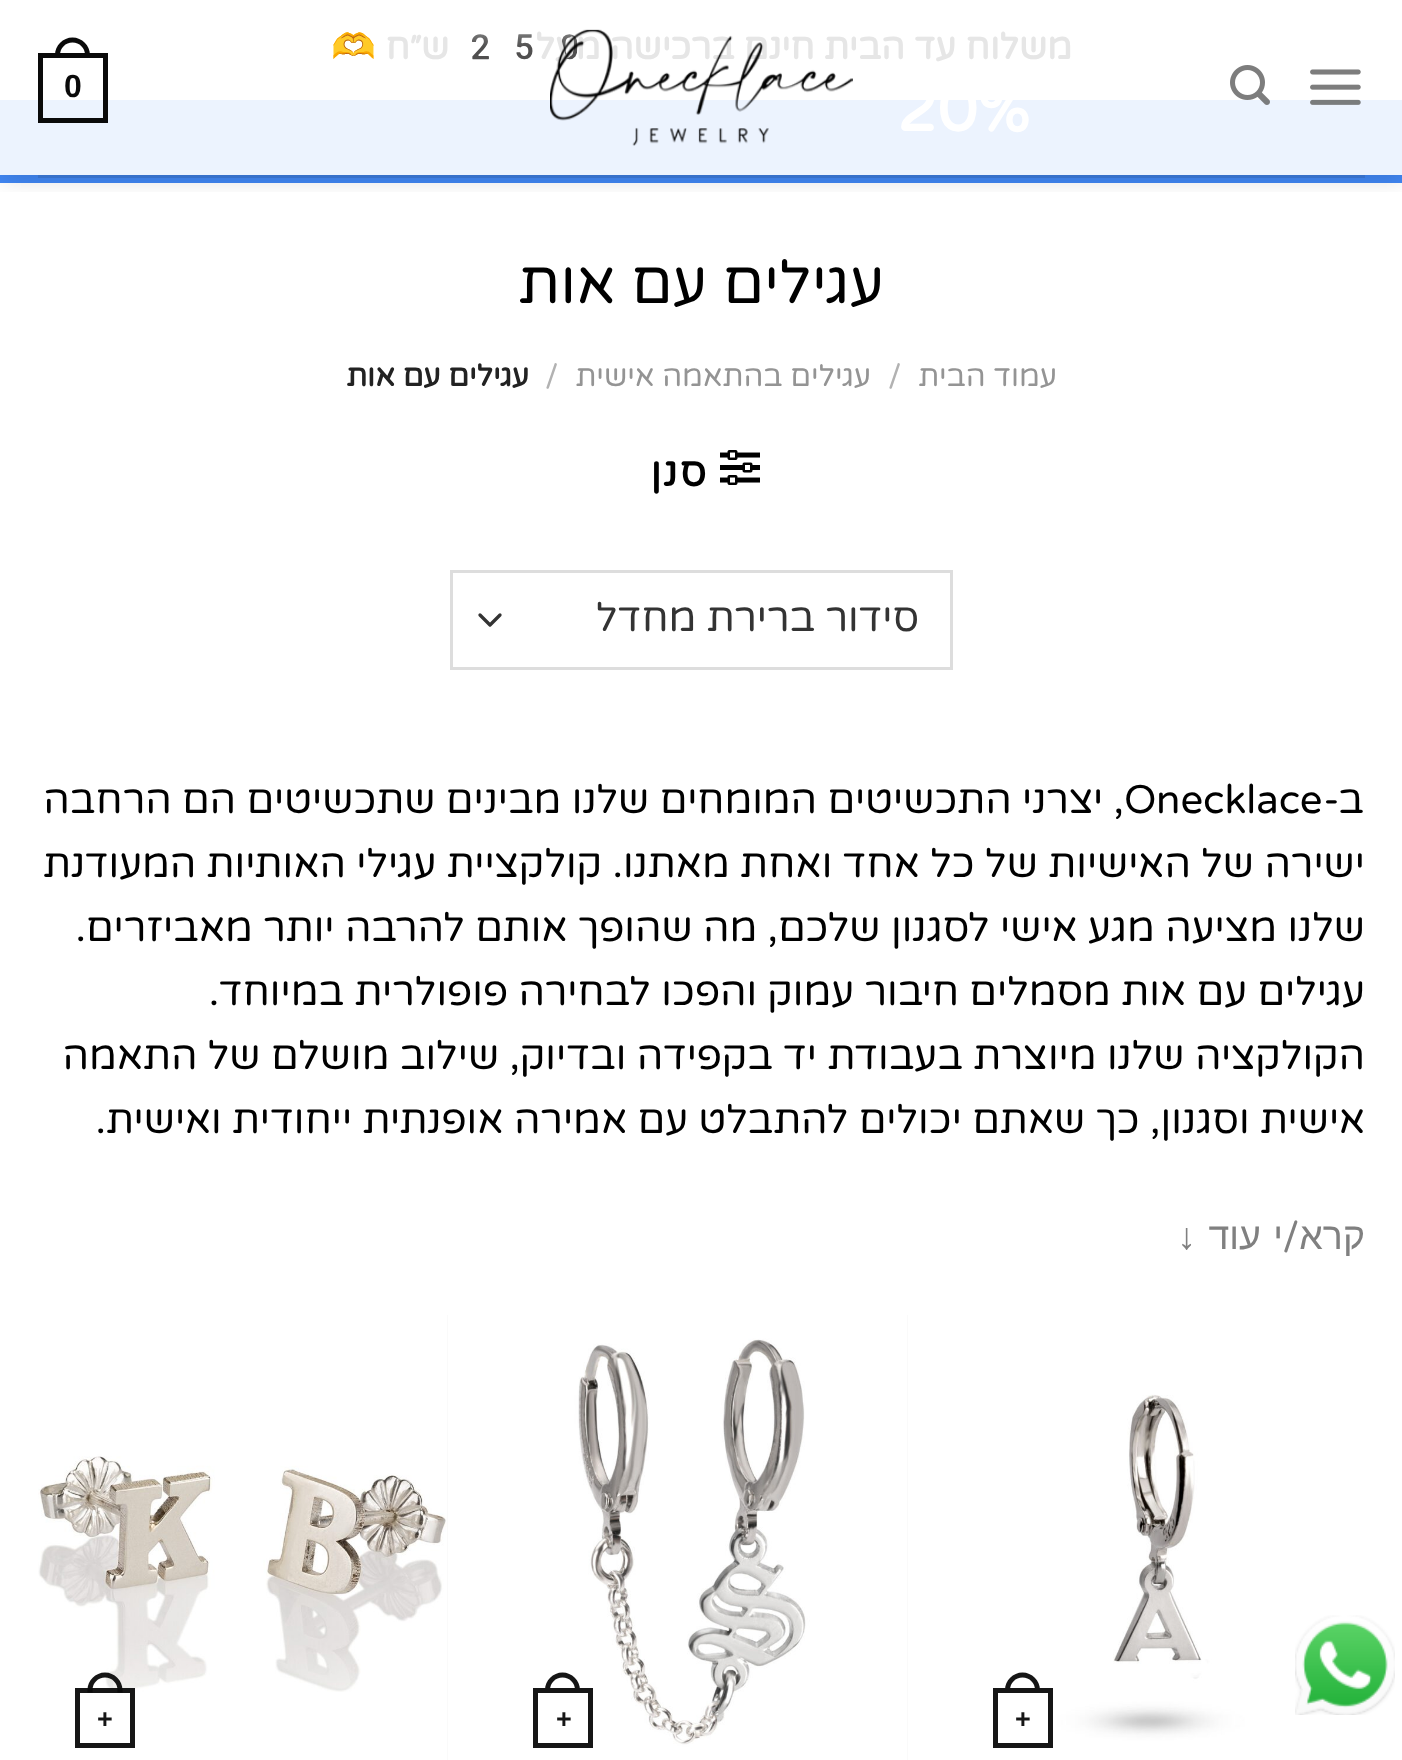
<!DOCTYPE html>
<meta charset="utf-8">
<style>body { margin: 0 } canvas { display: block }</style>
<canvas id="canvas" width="1402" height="1760"></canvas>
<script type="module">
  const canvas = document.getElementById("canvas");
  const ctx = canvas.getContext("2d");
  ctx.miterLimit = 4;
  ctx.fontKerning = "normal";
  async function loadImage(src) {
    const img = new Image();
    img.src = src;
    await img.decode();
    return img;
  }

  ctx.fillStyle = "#ffffff";
  ctx.fillRect(0, 0, 1402, 1760);
  ctx.font = "bold 36px Noto Color Emoji";
  ctx.fillStyle = "#e6e6e6";
  ctx.fillText("250", 458, 59);
  ctx.direction = "rtl";
  ctx.font = "bold 36px Varela Round";
  ctx.fillText("משלוח עד הבית חינם ברכישה מעל", 1072, 59);
  ctx.fillText("ש״ח", 449, 59);
  ctx.font = "bold 36px Noto Color Emoji";
  ctx.fillText("🫶", 376, 59);
  ctx.fillStyle = "#4187f4";
  ctx.fillRect(0, 175, 1402, 8);
  ctx.fillStyle = "#ecf3fe";
  ctx.fillRect(0, 100, 1402, 75);
  ctx.direction = "ltr";
  ctx.font = "bold 64px Varela Round";
  ctx.fillStyle = "#ffffff";
  ctx.fillText("20%", 897, 131);
  ctx.save();
  ctx.beginPath();
  ctx.rect(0, 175, 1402, 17);
  ctx.clip();
  ctx.fillStyle = "rgba(0, 0, 0, 0.15)";
  ctx.filter = "blur(12.5px)";
  ctx.beginPath();
  ctx.rect(3, 3, 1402, 175);
  ctx.fill();
  ctx.filter = "none";
  ctx.restore();
  ctx.drawImage(await loadImage("img1.png"), 1310, 69, 51, 36);
  ctx.drawImage(await loadImage("img2.png"), 1230, 65, 40, 40);
  ctx.drawImage(await loadImage("img3.png"), 550, 29, 303, 117);
  ctx.strokeStyle = "#0a0a0a";
  ctx.lineWidth = 5;
  ctx.strokeRect(40.5, 55.5, 65, 65);
  ctx.fillStyle = "#0a0a0a";
  ctx.beginPath();
  ctx.moveTo(72.5, 37.5);
  ctx.bezierCurveTo(82, 37.5, 90, 45.5, 90, 55);
  ctx.lineTo(90, 57.5);
  ctx.lineTo(55, 57.5);
  ctx.lineTo(55, 55);
  ctx.bezierCurveTo(55, 45.5, 63, 37.5, 72.5, 37.5);
  ctx.closePath();
  ctx.moveTo(72.5, 42.5);
  ctx.bezierCurveTo(79.5, 42.5, 85, 48, 85, 55);
  ctx.lineTo(85, 57.5);
  ctx.lineTo(60, 57.5);
  ctx.lineTo(60, 55);
  ctx.bezierCurveTo(60, 48, 65.5, 42.5, 72.5, 42.5);
  ctx.closePath();
  ctx.fill("evenodd");
  ctx.font = "bold 32px Liberation Sans";
  ctx.fillText("0", 64, 97);
  ctx.fillStyle = "#3670ca";
  ctx.fillRect(38, 175, 1327, 3);
  ctx.drawImage(await loadImage("img6.png"), 955, 1315, 410, 445);
  ctx.drawImage(await loadImage("img4.png"), 1295, 1615, 100, 100);
  ctx.direction = "rtl";
  ctx.font = "60px Varela Round";
  ctx.fillStyle = "#000000";
  ctx.fillText("עגילים עם אות", 884, 303);
  ctx.font = "30px Varela Round";
  ctx.fillStyle = "#949494";
  ctx.fillText("עמוד הבית", 1057, 386);
  ctx.direction = "ltr";
  ctx.fillStyle = "#b2b2b2";
  ctx.fillText("/", 888, 386);
  ctx.direction = "rtl";
  ctx.fillStyle = "#949494";
  ctx.fillText("עגילים בהתאמה אישית", 871, 386);
  ctx.direction = "ltr";
  ctx.fillStyle = "#b2b2b2";
  ctx.fillText("/", 545, 386);
  ctx.direction = "rtl";
  ctx.font = "bold 30px Varela Round";
  ctx.fillStyle = "#222222";
  ctx.fillText("עגילים עם אות", 529, 386);
  ctx.drawImage(await loadImage("img5.png"), 720, 450, 40, 35);
  ctx.letterSpacing = "2px";
  ctx.font = "bold 40px Varela Round";
  ctx.fillStyle = "#000000";
  ctx.fillText("סנן", 708, 486);
  ctx.beginPath();
  ctx.moveTo(480, 615);
  ctx.lineTo(490, 625);
  ctx.lineTo(500, 615);
  ctx.strokeStyle = "#333333";
  ctx.lineWidth = 3.3;
  ctx.lineCap = "round";
  ctx.lineJoin = "round";
  ctx.stroke();
  ctx.strokeStyle = "#dddddd";
  ctx.lineWidth = 3;
  ctx.lineJoin = "miter";
  ctx.strokeRect(451.5, 571.5, 500, 97);
  ctx.letterSpacing = "0px";
  ctx.font = "40px Varela Round";
  ctx.fillStyle = "#333333";
  ctx.fillText("סידור ברירת מחדל", 919, 631);
  ctx.fillStyle = "#000000";
  ctx.fillText("ב-", 1364, 813);
  ctx.direction = "ltr";
  ctx.fillText("Onecklace", 1124, 813);
  ctx.direction = "rtl";
  ctx.fillText(", יצרני התכשיטים המומחים שלנו מבינים שתכשיטים הם הרחבה", 1124, 813);
  ctx.fillText("ישירה של האישיות של כל אחד ואחת מאתנו. קולקציית עגילי האותיות המעודנת", 1365, 877);
  ctx.fillText("שלנו מציעה מגע אישי לסגנון שלכם, מה שהופך אותם להרבה יותר מאביזרים.", 1365, 941);
  ctx.fillText("עגילים עם אות מסמלים חיבור עמוק והפכו לבחירה פופולרית במיוחד.", 1365, 1005);
  ctx.fillText("הקולקציה שלנו מיוצרת בעבודת יד בקפידה ובדיוק, שילוב מושלם של התאמה", 1365, 1069);
  ctx.fillText("אישית וסגנון, כך שאתם יכולים להתבלט עם אמירה אופנתית ייחודית ואישית.", 1365, 1133);
  ctx.font = "37.5px Liberation Sans";
  ctx.fillStyle = "#808080";
  ctx.fillText("קרא", 1365, 1249);
  ctx.font = "37.5px Varela Round";
  ctx.fillText("/", 1299, 1249);
  ctx.wordSpacing = "2px";
  ctx.font = "37.5px Liberation Sans";
  ctx.fillText("י עוד ↓", 1283, 1249);
  ctx.strokeStyle = "#161616";
  ctx.lineWidth = 5;
  ctx.strokeRect(995.5, 1690.5, 55, 55);
  ctx.fillStyle = "#161616";
  ctx.beginPath();
  ctx.moveTo(1022.5, 1672.5);
  ctx.bezierCurveTo(1032, 1672.5, 1040, 1680.5, 1040, 1690);
  ctx.lineTo(1040, 1692.5);
  ctx.lineTo(1005, 1692.5);
  ctx.lineTo(1005, 1690);
  ctx.bezierCurveTo(1005, 1680.5, 1013, 1672.5, 1022.5, 1672.5);
  ctx.closePath();
  ctx.moveTo(1022.5, 1677.5);
  ctx.bezierCurveTo(1029.5, 1677.5, 1035, 1683, 1035, 1690);
  ctx.lineTo(1035, 1692.5);
  ctx.lineTo(1010, 1692.5);
  ctx.lineTo(1010, 1690);
  ctx.bezierCurveTo(1010, 1683, 1015.5, 1677.5, 1022.5, 1677.5);
  ctx.closePath();
  ctx.fill("evenodd");
  ctx.wordSpacing = "0px";
  ctx.direction = "ltr";
  ctx.font = "bold 27px Liberation Sans";
  ctx.fillText("+", 1015, 1728);
  ctx.fillStyle = "#fafafa";
  ctx.fillRect(907, 1315, 1, 445);
  ctx.drawImage(await loadImage("img7.png"), 495, 1315, 412, 445);
  ctx.strokeRect(535.5, 1690.5, 55, 55);
  ctx.fillStyle = "#161616";
  ctx.beginPath();
  ctx.moveTo(562.5, 1672.5);
  ctx.bezierCurveTo(572, 1672.5, 580, 1680.5, 580, 1690);
  ctx.lineTo(580, 1692.5);
  ctx.lineTo(545, 1692.5);
  ctx.lineTo(545, 1690);
  ctx.bezierCurveTo(545, 1680.5, 553, 1672.5, 562.5, 1672.5);
  ctx.closePath();
  ctx.moveTo(562.5, 1677.5);
  ctx.bezierCurveTo(569.5, 1677.5, 575, 1683, 575, 1690);
  ctx.lineTo(575, 1692.5);
  ctx.lineTo(550, 1692.5);
  ctx.lineTo(550, 1690);
  ctx.bezierCurveTo(550, 1683, 555.5, 1677.5, 562.5, 1677.5);
  ctx.closePath();
  ctx.fill("evenodd");
  ctx.fillText("+", 556, 1728);
  ctx.fillStyle = "#fafafa";
  ctx.fillRect(447, 1315, 1, 445);
  ctx.drawImage(await loadImage("img8.png"), 38, 1315, 409, 445);
  ctx.strokeStyle = "rgba(10, 10, 10, 0.95)";
  ctx.strokeRect(77.5, 1690.5, 55, 55);
  ctx.fillStyle = "rgba(10, 10, 10, 0.95)";
  ctx.beginPath();
  ctx.moveTo(105, 1672.5);
  ctx.bezierCurveTo(114.5, 1672.5, 122.5, 1680.5, 122.5, 1690);
  ctx.lineTo(122.5, 1692.5);
  ctx.lineTo(87.5, 1692.5);
  ctx.lineTo(87.5, 1690);
  ctx.bezierCurveTo(87.5, 1680.5, 95.5, 1672.5, 105, 1672.5);
  ctx.closePath();
  ctx.moveTo(105, 1677.5);
  ctx.bezierCurveTo(112, 1677.5, 117.5, 1683, 117.5, 1690);
  ctx.lineTo(117.5, 1692.5);
  ctx.lineTo(92.5, 1692.5);
  ctx.lineTo(92.5, 1690);
  ctx.bezierCurveTo(92.5, 1683, 98, 1677.5, 105, 1677.5);
  ctx.closePath();
  ctx.fill("evenodd");
  ctx.fillStyle = "#161616";
  ctx.fillText("+", 97, 1728);
</script>
